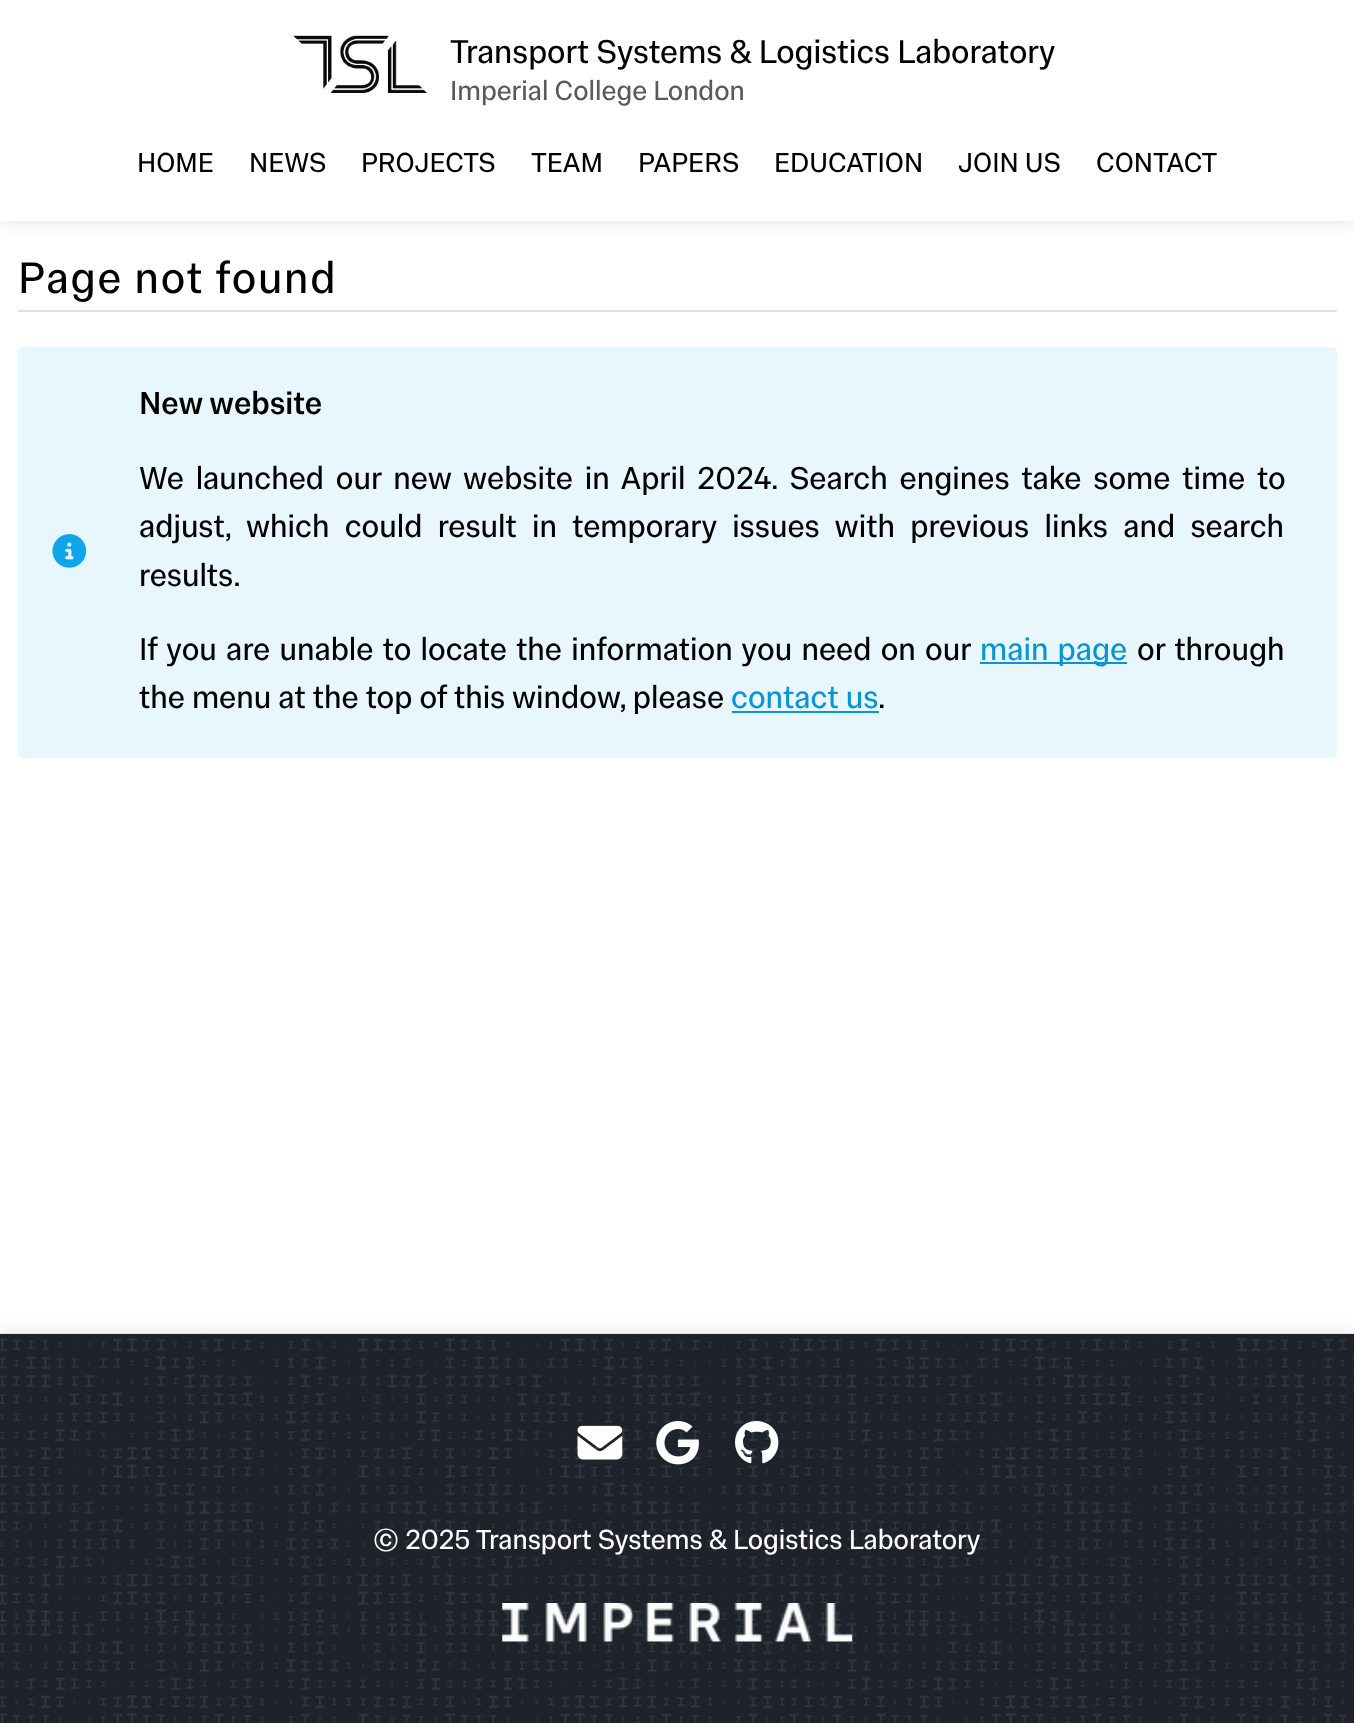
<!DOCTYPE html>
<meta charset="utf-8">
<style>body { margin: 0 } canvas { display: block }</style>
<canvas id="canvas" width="1354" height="1723"></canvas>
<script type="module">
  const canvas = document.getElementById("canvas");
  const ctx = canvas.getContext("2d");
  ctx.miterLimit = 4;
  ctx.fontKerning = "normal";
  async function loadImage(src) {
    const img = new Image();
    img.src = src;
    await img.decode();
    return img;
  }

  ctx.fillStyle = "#ffffff";
  ctx.fillRect(0, 0, 1354, 1723);
  ctx.fillStyle = "rgba(0, 0, 0, 0.12)";
  ctx.filter = "blur(9px)";
  ctx.beginPath();
  ctx.rect(0, 0, 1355, 221);
  ctx.fill();
  ctx.filter = "none";
  ctx.fillStyle = "#ffffff";
  ctx.fillRect(0, 0, 1354, 221);
  ctx.drawImage(await loadImage("img1.png"), 293, 35, 135, 58);
  ctx.font = "33.6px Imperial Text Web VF";
  ctx.fillStyle = "#000000";
  ctx.fillText("Transport Systems & Logistics Laboratory", 450, 63);
  ctx.font = "28px Imperial Text Web VF";
  ctx.fillStyle = "#595959";
  ctx.fillText("Imperial College London", 450, 100);
  ctx.fillStyle = "#000000";
  ctx.fillText("HOME", 137, 172);
  ctx.fillText("NEWS", 249, 172);
  ctx.fillText("PROJECTS", 361, 172);
  ctx.fillText("TEAM", 531, 172);
  ctx.fillText("PAPERS", 638, 172);
  ctx.fillText("EDUCATION", 774, 172);
  ctx.fillText("JOIN US", 958, 172);
  ctx.fillText("CONTACT", 1096, 172);
  ctx.fillStyle = "#e0e0e0";
  ctx.fillRect(18, 310, 1319, 2);
  ctx.letterSpacing = "1.75px";
  ctx.font = "44.75px Imperial Text Web VF";
  ctx.fillStyle = "#000000";
  ctx.fillText("Page not found", 18, 293);
  ctx.fillStyle = "#e8f7fe";
  ctx.beginPath();
  ctx.roundRect(18, 347, 1319, 411, 5);
  ctx.fill();
  ctx.drawImage(await loadImage("img2.png"), 52, 534, 35, 34);
  ctx.letterSpacing = "0px";
  ctx.font = "500 32.2px Imperial Text Web VF";
  ctx.fillStyle = "#000000";
  ctx.fillText("New website", 139, 414);
  ctx.wordSpacing = "4.75px";
  ctx.font = "32.2px Imperial Text Web VF";
  ctx.fillText("We launched our new website in April 2024. Search engines take some time to", 139, 489);
  ctx.wordSpacing = "8.25px";
  ctx.fillText("adjust, which could result in temporary issues with previous links and search", 139, 537);
  ctx.wordSpacing = "0px";
  ctx.fillText("results.", 139, 586);
  ctx.wordSpacing = "2.25px";
  ctx.fillText("If you are unable to locate the information you need on our", 139, 660);
  ctx.fillStyle = "#0795d9";
  ctx.fillRect(980, 662, 147, 2);
  ctx.wordSpacing = "2px";
  ctx.fillText("main page", 980, 660);
  ctx.wordSpacing = "2.25px";
  ctx.fillStyle = "#000000";
  ctx.fillText("or through", 1137, 660);
  ctx.wordSpacing = "0px";
  ctx.fillText("the menu at the top of this window, please", 139, 708);
  ctx.fillStyle = "#0795d9";
  ctx.fillText("contact us", 731, 708);
  ctx.fillRect(732, 711, 147, 2);
  ctx.fillStyle = "#000000";
  ctx.fillText(".", 878, 708);
  ctx.fillStyle = "rgba(0, 0, 0, 0.12)";
  ctx.filter = "blur(9px)";
  ctx.beginPath();
  ctx.rect(0, 1334, 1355, 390);
  ctx.fill();
  ctx.filter = "none";
  ctx.fillStyle = "#1c1e22";
  ctx.fillRect(0, 1334, 1354, 389);
  ctx.drawImage(await loadImage("img3.png"), 0, 1333, 1354, 390);
  ctx.drawImage(await loadImage("img4.png"), 577, 1425, 46, 35);
  ctx.drawImage(await loadImage("img5.png"), 656, 1421, 43, 44);
  ctx.drawImage(await loadImage("img6.png"), 735, 1421, 44, 43);
  ctx.font = "28px Imperial Text Web VF";
  ctx.fillStyle = "#ffffff";
  ctx.fillText("© 2025 Transport Systems & Logistics Laboratory", 373, 1549);
  ctx.drawImage(await loadImage("img7.png"), 502, 1603, 351, 39);
</script>
